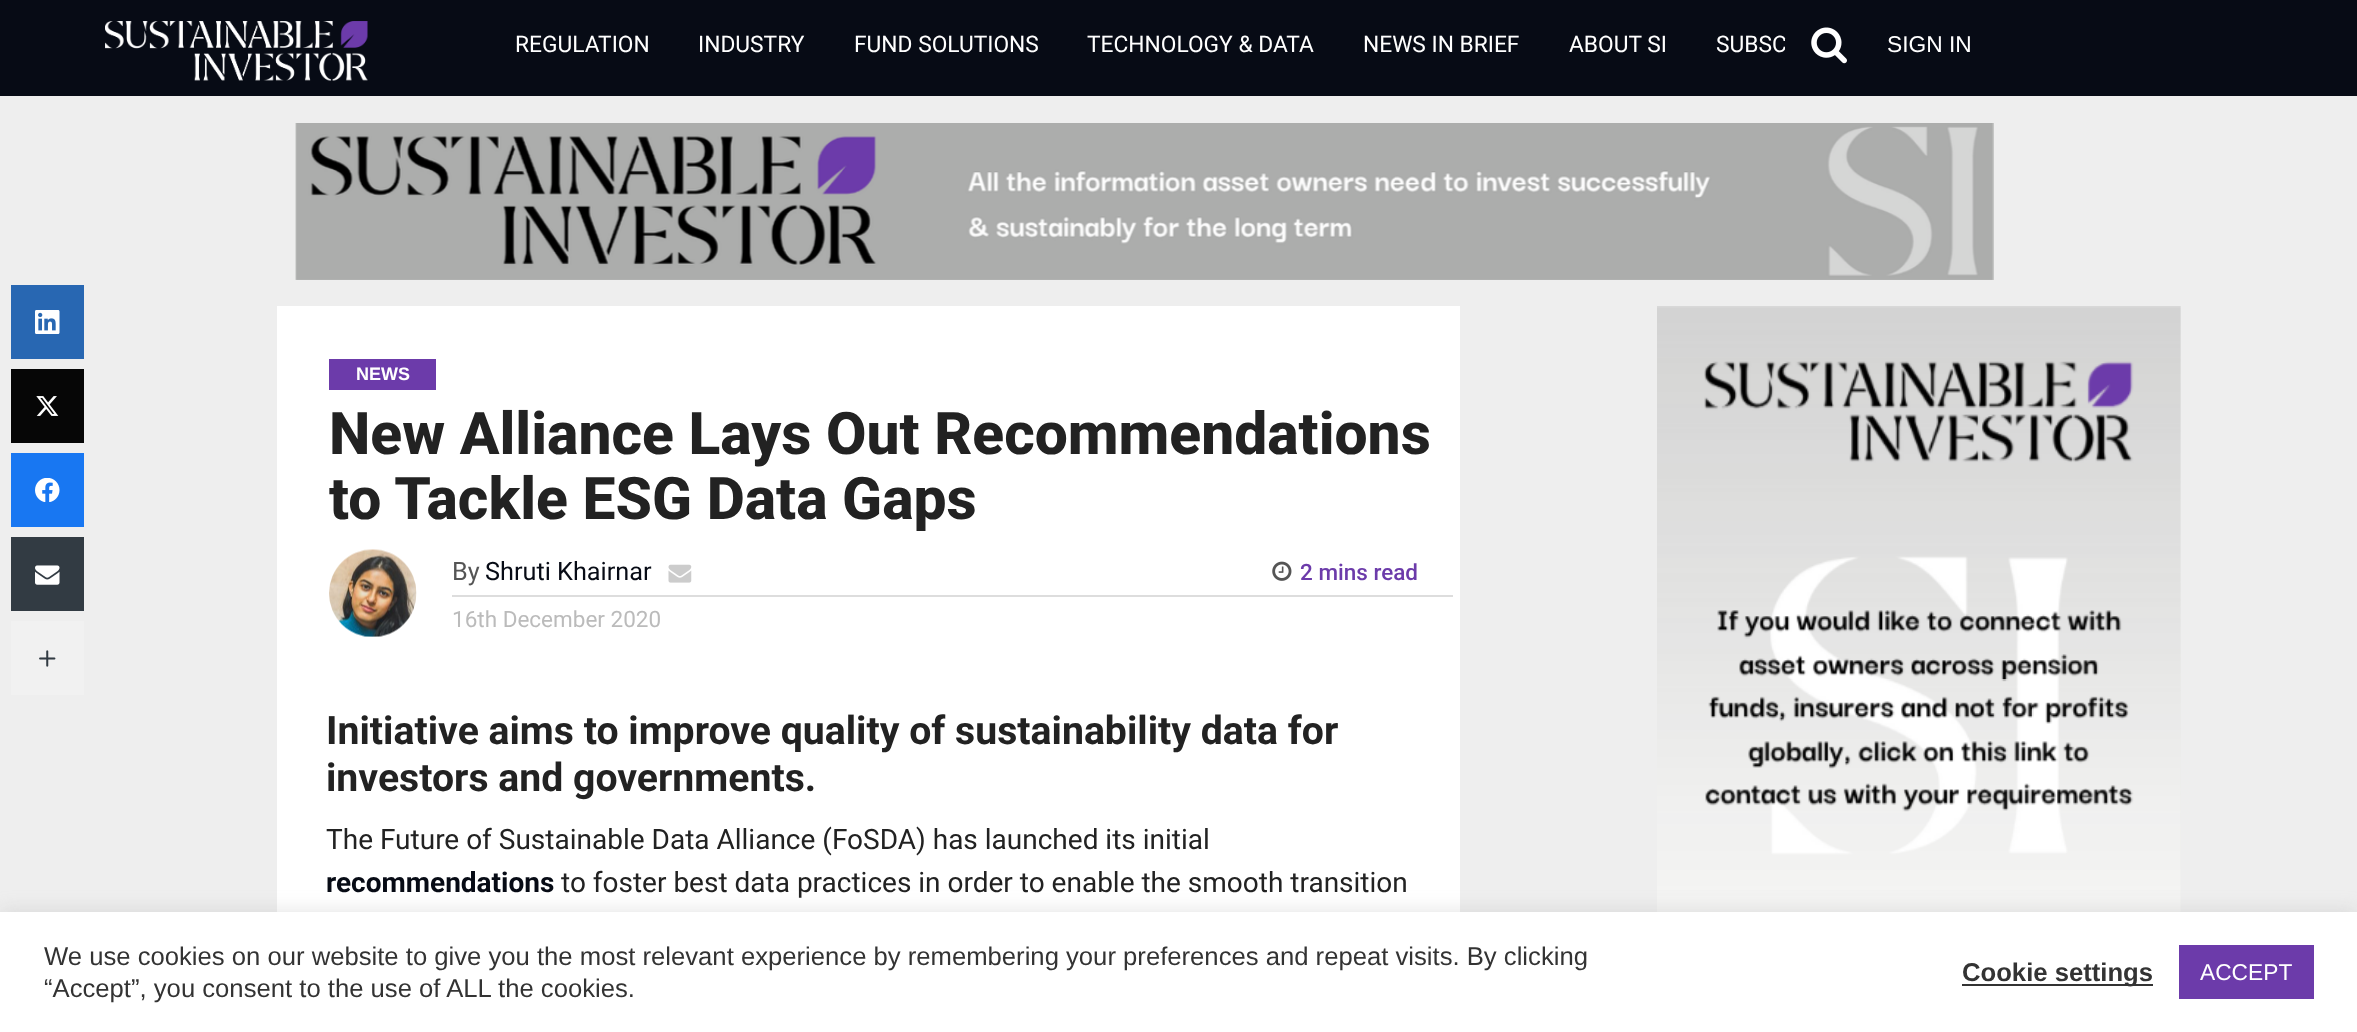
<!DOCTYPE html>
<meta charset="utf-8">
<style>body { margin: 0 } canvas { display: block }</style>
<canvas id="canvas" width="2357" height="1032"></canvas>
<script type="module">
  const canvas = document.getElementById("canvas");
  const ctx = canvas.getContext("2d");
  ctx.miterLimit = 4;
  ctx.fontKerning = "normal";
  async function loadImage(src) {
    const img = new Image();
    img.src = src;
    await img.decode();
    return img;
  }

  ctx.fillStyle = "#eeeeee";
  ctx.fillRect(0, 0, 2357, 1032);
  ctx.fillStyle = "#2867b2";
  ctx.fillRect(11, 285, 73, 74);
  ctx.drawImage(await loadImage("img1.png"), 35, 310, 25, 24);
  ctx.fillStyle = "#060606";
  ctx.fillRect(11, 369, 73, 74);
  ctx.drawImage(await loadImage("img2.png"), 36, 396, 23, 20);
  ctx.fillStyle = "#1877f2";
  ctx.fillRect(11, 453, 73, 74);
  ctx.drawImage(await loadImage("img3.png"), 35, 478, 25, 24);
  ctx.fillStyle = "#323b43";
  ctx.fillRect(11, 537, 73, 74);
  ctx.drawImage(await loadImage("img4.png"), 35, 565, 25, 20);
  ctx.fillStyle = "#f1f1f1";
  ctx.fillRect(11, 621, 73, 74);
  ctx.drawImage(await loadImage("img5.png"), 39, 650, 17, 17);
  ctx.fillStyle = "#070b15";
  ctx.fillRect(0, 0, 2357, 96);
  ctx.drawImage(await loadImage("img6.png"), 105, 21, 263, 60);
  ctx.font = "22.75px Roboto";
  ctx.fillStyle = "#ffffff";
  ctx.fillText("REGULATION", 515, 52);
  ctx.fillText("INDUSTRY", 698, 52);
  ctx.fillText("FUND SOLUTIONS", 854, 52);
  ctx.fillText("TECHNOLOGY & DATA", 1087, 52);
  ctx.fillText("NEWS IN BRIEF", 1363, 52);
  ctx.fillText("ABOUT SI", 1569, 52);
  ctx.fillText("SUBSC", 1716, 52);
  ctx.fillStyle = "#070b15";
  ctx.fillRect(1785, 39, 1, 10);
  ctx.drawImage(await loadImage("img7.png"), 1811, 27, 36, 37);
  ctx.font = "22.75px Liberation Sans";
  ctx.fillStyle = "#ffffff";
  ctx.fillText("SIGN IN", 1887, 52);
  ctx.drawImage(await loadImage("img8.png"), 295, 123, 1699, 157);
  ctx.fillRect(277, 306, 1183, 606);
  ctx.fillStyle = "#6c3baa";
  ctx.fillRect(329, 359, 107, 31);
  ctx.font = "bold 18px Liberation Sans";
  ctx.fillStyle = "#ffffff";
  ctx.fillText("NEWS", 356, 380);
  ctx.font = "800 58.75px Roboto";
  ctx.fillStyle = "#222222";
  ctx.fillText("New Alliance Lays Out Recommendations", 329, 454);
  ctx.fillText("to Tackle ESG Data Gaps", 329, 519);
  ctx.drawImage(await loadImage("img9.png"), 329, 549, 88, 88);
  ctx.fillStyle = "#dddddd";
  ctx.fillRect(452, 595, 1001, 2);
  ctx.font = "25.25px Roboto";
  ctx.fillStyle = "#555555";
  ctx.fillText("By", 452, 580);
  ctx.fillStyle = "#070b15";
  ctx.fillText("Shruti Khairnar", 485, 580);
  ctx.drawImage(await loadImage("img10.png"), 668, 564, 24, 19);
  ctx.drawImage(await loadImage("img11.png"), 1272, 561, 20, 20);
  ctx.font = "500 22.5px Roboto";
  ctx.fillStyle = "#6c3baa";
  ctx.fillText("2 mins read", 1300, 580);
  ctx.font = "22.5px Roboto";
  ctx.fillStyle = "#bbbbbb";
  ctx.fillText("16th December 2020", 452, 627);
  ctx.font = "bold 39.2px Roboto";
  ctx.fillStyle = "#222222";
  ctx.fillText("Initiative aims to improve quality of sustainability data for", 326, 744);
  ctx.fillText("investors and governments.", 326, 791);
  ctx.font = "28px Roboto";
  ctx.fillText("The Future of Sustainable Data Alliance (FoSDA) has launched its initial", 326, 849);
  ctx.font = "bold 28px Roboto";
  ctx.fillStyle = "#070b15";
  ctx.fillText("recommendations", 326, 892);
  ctx.font = "28px Roboto";
  ctx.fillStyle = "#222222";
  ctx.fillText("to foster best data practices in order to enable the smooth transition", 561, 892);
  ctx.drawImage(await loadImage("img12.png"), 1657, 306, 524, 606);
  ctx.fillStyle = "rgba(172, 171, 171, 0.3)";
  ctx.filter = "blur(9px)";
  ctx.beginPath();
  ctx.rect(0, 910, 2357, 121);
  ctx.fill();
  ctx.filter = "none";
  ctx.fillStyle = "#ffffff";
  ctx.fillRect(0, 912, 2357, 120);
  ctx.font = "25.67px Liberation Sans";
  ctx.fillStyle = "#333333";
  ctx.fillText("We use cookies on our website to give you the most relevant experience by remembering your preferences and repeat visits. By clicking", 44, 965);
  ctx.fillText("“Accept”, you consent to the use of ALL the cookies.", 44, 997);
  ctx.fillRect(1962, 984, 191, 2);
  ctx.font = "bold 25.67px Liberation Sans";
  ctx.fillText("Cookie settings", 1962, 981);
  ctx.fillStyle = "#6c3baa";
  ctx.fillRect(2179, 945, 135, 54);
  ctx.font = "22.75px Liberation Sans";
  ctx.fillStyle = "#ffffff";
  ctx.fillText("ACCEPT", 2200, 980);
</script>
